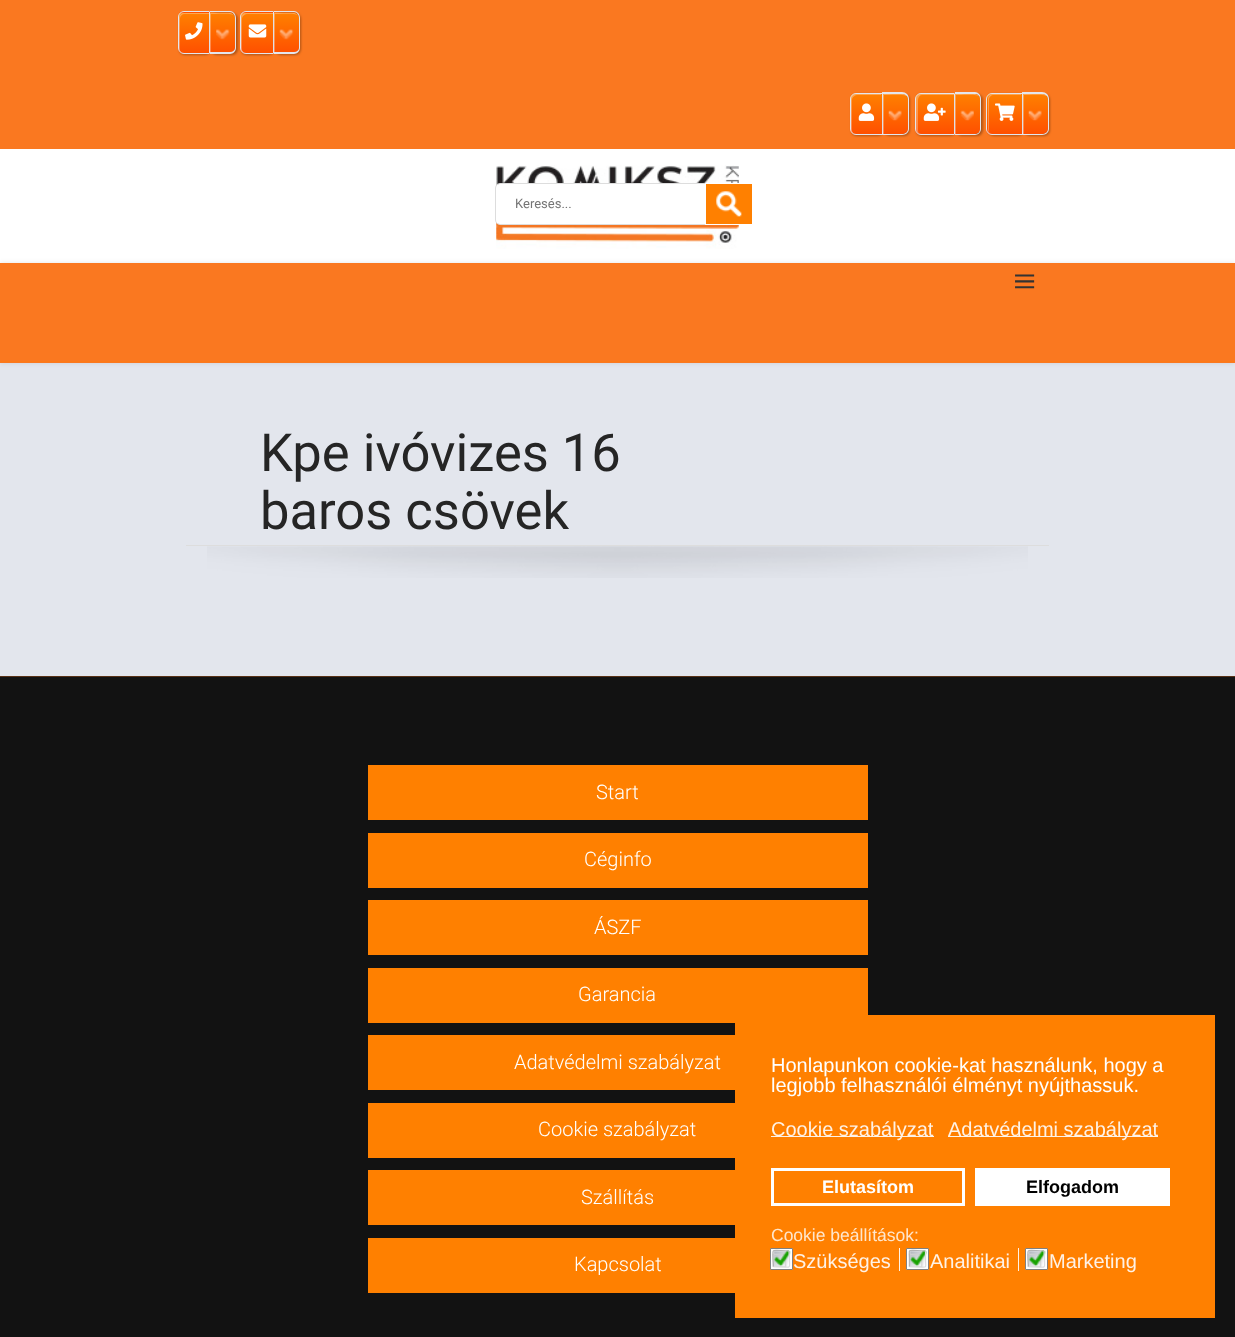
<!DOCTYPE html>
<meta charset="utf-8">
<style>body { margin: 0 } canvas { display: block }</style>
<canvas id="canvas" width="1235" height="1337"></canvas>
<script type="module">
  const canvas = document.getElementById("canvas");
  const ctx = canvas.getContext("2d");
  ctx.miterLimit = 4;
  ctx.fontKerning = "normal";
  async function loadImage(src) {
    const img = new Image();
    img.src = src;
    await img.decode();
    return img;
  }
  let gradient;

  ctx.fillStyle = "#ffffff";
  ctx.fillRect(0, 0, 1235, 1337);
  ctx.fillStyle = "#fa7820";
  ctx.fillRect(0, 0, 1235, 149);
  ctx.fillStyle = "rgba(0, 0, 0, 0.3)";
  ctx.filter = "blur(1px)";
  ctx.beginPath();
  ctx.roundRect(179, 13, 32, 42, 6);
  ctx.fill();
  ctx.filter = "none";
  ctx.save();
  ctx.beginPath();
  ctx.roundRect(178, 11, 32, 43, [6, 1, 1, 6]);
  ctx.clip();
  gradient = ctx.createLinearGradient(194, -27, 194, 13);
  gradient.addColorStop(0, "#ff8000");
  gradient.addColorStop(1, "#ff5000");
  ctx.fillStyle = gradient;
  ctx.beginPath();
  ctx.roundRect(178, 11, 32, 2, [0, 1, 0, 0]);
  ctx.fill();
  gradient = ctx.createLinearGradient(194, 13, 194, 53);
  gradient.addColorStop(0, "#ff8000");
  gradient.addColorStop(1, "#ff5000");
  ctx.fillStyle = gradient;
  ctx.fillRect(178, 13, 31, 40);
  ctx.restore();
  ctx.fillStyle = "rgba(255, 255, 255, 0.3)";
  ctx.beginPath();
  ctx.moveTo(185, 14);
  ctx.lineTo(209, 14);
  ctx.lineTo(209, 13);
  ctx.lineTo(184, 13);
  ctx.bezierCurveTo(181, 13, 179, 15, 179, 18);
  ctx.lineTo(179, 48);
  ctx.bezierCurveTo(179, 49.5, 179.5, 51, 180.5, 52);
  ctx.bezierCurveTo(180, 51, 180, 50, 180, 49);
  ctx.lineTo(180, 19);
  ctx.bezierCurveTo(180, 16, 182, 14, 185, 14);
  ctx.closePath();
  ctx.fill();
  ctx.beginPath();
  ctx.roundRect(178.5, 11.5, 31, 42, [5.5, 0.5, 0.5, 5.5]);
  ctx.strokeStyle = "#e3e6ed";
  ctx.stroke();
  ctx.drawImage(await loadImage("img1.png"), 185, 22, 18, 18);
  ctx.fillStyle = "rgba(0, 0, 0, 0.3)";
  ctx.filter = "blur(1px)";
  ctx.beginPath();
  ctx.roundRect(211, 13, 27, 42, 6);
  ctx.fill();
  ctx.filter = "none";
  gradient = ctx.createLinearGradient(223, 13, 223, 53);
  gradient.addColorStop(0, "#ff8000");
  gradient.addColorStop(1, "#ff5000");
  ctx.fillStyle = gradient;
  ctx.beginPath();
  ctx.roundRect(210, 13, 25, 40, [0, 5, 5, 0]);
  ctx.fill();
  ctx.fillStyle = "rgba(255, 255, 255, 0.3)";
  ctx.beginPath();
  ctx.moveTo(211, 14);
  ctx.bezierCurveTo(215, 14, 231, 13, 234, 15);
  ctx.bezierCurveTo(233, 14, 231, 13, 230, 13);
  ctx.lineTo(210, 13);
  ctx.lineTo(210, 53);
  ctx.lineTo(211, 53);
  ctx.closePath();
  ctx.fill();
  ctx.fillStyle = "#e3e6ed";
  ctx.beginPath();
  ctx.moveTo(210, 11);
  ctx.lineTo(230, 11);
  ctx.bezierCurveTo(233, 11, 236, 14, 236, 18);
  ctx.lineTo(236, 48);
  ctx.bezierCurveTo(236, 51, 233, 54, 230, 54);
  ctx.lineTo(210, 54);
  ctx.closePath();
  ctx.moveTo(210, 12);
  ctx.lineTo(230, 12);
  ctx.bezierCurveTo(233, 12, 235, 15, 235, 18);
  ctx.lineTo(235, 48);
  ctx.bezierCurveTo(235, 50, 233, 52, 230, 52);
  ctx.lineTo(210, 52);
  ctx.closePath();
  ctx.fill("evenodd");
  ctx.drawImage(await loadImage("img2.png"), 216, 29, 14, 11);
  ctx.fillStyle = "rgba(0, 0, 0, 0.3)";
  ctx.filter = "blur(1px)";
  ctx.beginPath();
  ctx.roundRect(241, 13, 34, 42, 6);
  ctx.fill();
  ctx.filter = "none";
  ctx.save();
  ctx.beginPath();
  ctx.roundRect(240, 11, 34, 43, [6, 1, 1, 6]);
  ctx.clip();
  gradient = ctx.createLinearGradient(257, -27, 257, 13);
  gradient.addColorStop(0, "#ff8000");
  gradient.addColorStop(1, "#ff5000");
  ctx.fillStyle = gradient;
  ctx.beginPath();
  ctx.roundRect(240, 11, 34, 2, [0, 1, 0, 0]);
  ctx.fill();
  gradient = ctx.createLinearGradient(257, 13, 257, 53);
  gradient.addColorStop(0, "#ff8000");
  gradient.addColorStop(1, "#ff5000");
  ctx.fillStyle = gradient;
  ctx.fillRect(240, 13, 33, 40);
  ctx.restore();
  ctx.fillStyle = "rgba(255, 255, 255, 0.3)";
  ctx.beginPath();
  ctx.moveTo(248, 14);
  ctx.lineTo(273, 14);
  ctx.lineTo(273, 13);
  ctx.lineTo(246, 13);
  ctx.bezierCurveTo(243, 13, 241, 15, 241, 18);
  ctx.lineTo(241, 48);
  ctx.bezierCurveTo(241, 50, 242, 51.5, 243.5, 52.5);
  ctx.bezierCurveTo(242.5, 51.5, 242, 50.5, 242, 49);
  ctx.lineTo(242, 19);
  ctx.bezierCurveTo(242, 16, 245, 14, 248, 14);
  ctx.closePath();
  ctx.fill();
  ctx.beginPath();
  ctx.roundRect(240.5, 11.5, 33, 42, [5.5, 0.5, 0.5, 5.5]);
  ctx.stroke();
  ctx.drawImage(await loadImage("img3.png"), 248, 24, 19, 14);
  ctx.fillStyle = "rgba(0, 0, 0, 0.3)";
  ctx.filter = "blur(1px)";
  ctx.beginPath();
  ctx.roundRect(275, 13, 26, 42, 6);
  ctx.fill();
  ctx.filter = "none";
  gradient = ctx.createLinearGradient(286, 13, 286, 53);
  gradient.addColorStop(0, "#ff8000");
  gradient.addColorStop(1, "#ff5000");
  ctx.fillStyle = gradient;
  ctx.beginPath();
  ctx.roundRect(274, 13, 25, 40, [0, 5, 5, 0]);
  ctx.fill();
  ctx.fillStyle = "rgba(255, 255, 255, 0.3)";
  ctx.beginPath();
  ctx.moveTo(275, 14);
  ctx.bezierCurveTo(279, 14, 295, 13, 298, 15);
  ctx.bezierCurveTo(297, 14, 295, 13, 294, 13);
  ctx.lineTo(274, 13);
  ctx.lineTo(274, 53);
  ctx.lineTo(275, 53);
  ctx.closePath();
  ctx.fill();
  ctx.fillStyle = "#e3e6ed";
  ctx.beginPath();
  ctx.moveTo(274, 11);
  ctx.lineTo(294, 11);
  ctx.bezierCurveTo(297, 11, 300, 14, 300, 18);
  ctx.lineTo(300, 48);
  ctx.bezierCurveTo(300, 51, 297, 54, 294, 54);
  ctx.lineTo(274, 54);
  ctx.closePath();
  ctx.moveTo(274, 12);
  ctx.lineTo(294, 12);
  ctx.bezierCurveTo(297, 12, 299, 15, 299, 18);
  ctx.lineTo(299, 48);
  ctx.bezierCurveTo(299, 50, 297, 52, 294, 52);
  ctx.lineTo(274, 52);
  ctx.closePath();
  ctx.fill("evenodd");
  ctx.drawImage(await loadImage("img4.png"), 279, 29, 15, 11);
  ctx.fillStyle = "rgba(0, 0, 0, 0.3)";
  ctx.filter = "blur(1px)";
  ctx.beginPath();
  ctx.roundRect(851, 94, 33, 42, 6);
  ctx.fill();
  ctx.filter = "none";
  ctx.save();
  ctx.beginPath();
  ctx.roundRect(850, 93, 33, 42, [6, 1, 1, 6]);
  ctx.clip();
  gradient = ctx.createLinearGradient(866, 94, 866, 134);
  gradient.addColorStop(0, "#ff8000");
  gradient.addColorStop(1, "#ff5000");
  ctx.fillStyle = gradient;
  ctx.fillRect(850, 94, 32, 40);
  ctx.restore();
  ctx.fillStyle = "rgba(255, 255, 255, 0.3)";
  ctx.beginPath();
  ctx.moveTo(858, 95);
  ctx.lineTo(881, 95);
  ctx.lineTo(881, 94);
  ctx.lineTo(856, 94);
  ctx.bezierCurveTo(853, 94, 851, 96, 851, 99);
  ctx.lineTo(851, 129);
  ctx.bezierCurveTo(851, 131, 852, 132.5, 853.5, 133.5);
  ctx.bezierCurveTo(852.5, 132.5, 852, 131.5, 852, 130);
  ctx.lineTo(852, 100);
  ctx.bezierCurveTo(852, 97, 855, 95, 858, 95);
  ctx.closePath();
  ctx.fill();
  ctx.beginPath();
  ctx.roundRect(850.5, 93.5, 32, 41, [5.5, 0.5, 0.5, 5.5]);
  ctx.stroke();
  ctx.drawImage(await loadImage("img5.png"), 858, 103, 17, 18);
  ctx.fillStyle = "rgba(0, 0, 0, 0.3)";
  ctx.filter = "blur(1px)";
  ctx.beginPath();
  ctx.roundRect(884, 94, 26, 42, 6);
  ctx.fill();
  ctx.filter = "none";
  gradient = ctx.createLinearGradient(895, 94, 895, 134);
  gradient.addColorStop(0, "#ff8000");
  gradient.addColorStop(1, "#ff5000");
  ctx.fillStyle = gradient;
  ctx.beginPath();
  ctx.roundRect(883, 94, 25, 40, [0, 5, 5, 0]);
  ctx.fill();
  ctx.fillStyle = "rgba(255, 255, 255, 0.3)";
  ctx.beginPath();
  ctx.moveTo(884, 95);
  ctx.bezierCurveTo(888, 95, 904, 94, 907, 96);
  ctx.bezierCurveTo(906, 95, 904, 94, 903, 94);
  ctx.lineTo(883, 94);
  ctx.lineTo(883, 134);
  ctx.lineTo(884, 134);
  ctx.closePath();
  ctx.fill();
  ctx.fillStyle = "#e3e6ed";
  ctx.beginPath();
  ctx.moveTo(882, 92);
  ctx.lineTo(902, 92);
  ctx.bezierCurveTo(906, 92, 909, 95, 909, 99);
  ctx.lineTo(909, 129);
  ctx.bezierCurveTo(909, 132, 906, 135, 902, 135);
  ctx.lineTo(882, 135);
  ctx.closePath();
  ctx.moveTo(882, 94);
  ctx.lineTo(902, 94);
  ctx.bezierCurveTo(905, 94, 908, 96, 908, 99);
  ctx.lineTo(908, 129);
  ctx.bezierCurveTo(908, 132, 905, 134, 902, 134);
  ctx.lineTo(882, 134);
  ctx.closePath();
  ctx.fill("evenodd");
  ctx.drawImage(await loadImage("img6.png"), 888, 110, 14, 11);
  ctx.fillStyle = "rgba(0, 0, 0, 0.3)";
  ctx.filter = "blur(1px)";
  ctx.beginPath();
  ctx.roundRect(916, 94, 40, 42, 6);
  ctx.fill();
  ctx.filter = "none";
  ctx.save();
  ctx.beginPath();
  ctx.roundRect(915, 93, 40, 42, [6, 1, 1, 6]);
  ctx.clip();
  gradient = ctx.createLinearGradient(935, 94, 935, 134);
  gradient.addColorStop(0, "#ff8000");
  gradient.addColorStop(1, "#ff5000");
  ctx.fillStyle = gradient;
  ctx.fillRect(915, 94, 39, 40);
  ctx.restore();
  ctx.fillStyle = "rgba(255, 255, 255, 0.3)";
  ctx.beginPath();
  ctx.moveTo(922, 95);
  ctx.lineTo(954, 95);
  ctx.lineTo(954, 94);
  ctx.lineTo(921, 94);
  ctx.bezierCurveTo(918, 94, 916, 96, 916, 99);
  ctx.lineTo(916, 129);
  ctx.bezierCurveTo(916, 131, 917.5, 133, 919.5, 133.5);
  ctx.bezierCurveTo(918.5, 133, 918, 131.5, 918, 130);
  ctx.lineTo(918, 100);
  ctx.bezierCurveTo(918, 97, 920, 95, 922, 95);
  ctx.closePath();
  ctx.fill();
  ctx.beginPath();
  ctx.roundRect(915.5, 93.5, 39, 41, [5.5, 0.5, 0.5, 5.5]);
  ctx.stroke();
  ctx.drawImage(await loadImage("img7.png"), 923, 103, 23, 18);
  ctx.fillStyle = "rgba(0, 0, 0, 0.3)";
  ctx.filter = "blur(1px)";
  ctx.beginPath();
  ctx.roundRect(956, 94, 27, 42, 6);
  ctx.fill();
  ctx.filter = "none";
  gradient = ctx.createLinearGradient(968, 94, 968, 134);
  gradient.addColorStop(0, "#ff8000");
  gradient.addColorStop(1, "#ff5000");
  ctx.fillStyle = gradient;
  ctx.beginPath();
  ctx.roundRect(955, 94, 25, 40, [0, 5, 5, 0]);
  ctx.fill();
  ctx.fillStyle = "rgba(255, 255, 255, 0.3)";
  ctx.beginPath();
  ctx.moveTo(956, 95);
  ctx.bezierCurveTo(960, 95, 976, 94, 979, 96);
  ctx.bezierCurveTo(978, 95, 976, 94, 975, 94);
  ctx.lineTo(955, 94);
  ctx.lineTo(955, 134);
  ctx.lineTo(956, 134);
  ctx.closePath();
  ctx.fill();
  ctx.fillStyle = "#e3e6ed";
  ctx.beginPath();
  ctx.moveTo(955, 92);
  ctx.lineTo(975, 92);
  ctx.bezierCurveTo(978, 92, 981, 95, 981, 99);
  ctx.lineTo(981, 129);
  ctx.bezierCurveTo(981, 132, 978, 135, 975, 135);
  ctx.lineTo(955, 135);
  ctx.closePath();
  ctx.moveTo(955, 94);
  ctx.lineTo(975, 94);
  ctx.bezierCurveTo(978, 94, 980, 96, 980, 99);
  ctx.lineTo(980, 129);
  ctx.bezierCurveTo(980, 132, 978, 134, 975, 134);
  ctx.lineTo(955, 134);
  ctx.closePath();
  ctx.fill("evenodd");
  ctx.drawImage(await loadImage("img8.png"), 960, 110, 14, 11);
  ctx.fillStyle = "rgba(0, 0, 0, 0.3)";
  ctx.filter = "blur(1px)";
  ctx.beginPath();
  ctx.roundRect(988, 94, 36, 42, 6);
  ctx.fill();
  ctx.filter = "none";
  ctx.save();
  ctx.beginPath();
  ctx.roundRect(986, 93, 37, 42, [6, 1, 1, 6]);
  ctx.clip();
  gradient = ctx.createLinearGradient(1004, 94, 1004, 134);
  gradient.addColorStop(0, "#ff8000");
  gradient.addColorStop(1, "#ff5000");
  ctx.fillStyle = gradient;
  ctx.fillRect(986, 94, 36, 40);
  ctx.restore();
  ctx.fillStyle = "rgba(255, 255, 255, 0.3)";
  ctx.beginPath();
  ctx.moveTo(994, 95);
  ctx.lineTo(1021, 95);
  ctx.lineTo(1021, 94);
  ctx.lineTo(993, 94);
  ctx.bezierCurveTo(990, 94, 988, 96, 988, 99);
  ctx.lineTo(988, 129);
  ctx.bezierCurveTo(988, 130.5, 988.5, 132, 989.5, 133);
  ctx.bezierCurveTo(989, 132, 989, 131, 989, 130);
  ctx.lineTo(989, 100);
  ctx.bezierCurveTo(989, 97, 991, 95, 994, 95);
  ctx.closePath();
  ctx.fill();
  ctx.beginPath();
  ctx.roundRect(986.5, 93.5, 36, 41, [5.5, 0.5, 0.5, 5.5]);
  ctx.stroke();
  ctx.drawImage(await loadImage("img9.png"), 995, 103, 20, 18);
  ctx.fillStyle = "rgba(0, 0, 0, 0.3)";
  ctx.filter = "blur(1px)";
  ctx.beginPath();
  ctx.roundRect(1024, 94, 26, 42, 6);
  ctx.fill();
  ctx.filter = "none";
  gradient = ctx.createLinearGradient(1035, 94, 1035, 134);
  gradient.addColorStop(0, "#ff8000");
  gradient.addColorStop(1, "#ff5000");
  ctx.fillStyle = gradient;
  ctx.beginPath();
  ctx.roundRect(1023, 94, 25, 40, [0, 5, 5, 0]);
  ctx.fill();
  ctx.fillStyle = "rgba(255, 255, 255, 0.3)";
  ctx.beginPath();
  ctx.moveTo(1024, 95);
  ctx.bezierCurveTo(1028, 95, 1044, 94, 1047, 96);
  ctx.bezierCurveTo(1046, 95, 1044, 94, 1043, 94);
  ctx.lineTo(1023, 94);
  ctx.lineTo(1023, 134);
  ctx.lineTo(1024, 134);
  ctx.closePath();
  ctx.fill();
  ctx.fillStyle = "#e3e6ed";
  ctx.beginPath();
  ctx.moveTo(1022, 92);
  ctx.lineTo(1042, 92);
  ctx.bezierCurveTo(1046, 92, 1049, 95, 1049, 99);
  ctx.lineTo(1049, 129);
  ctx.bezierCurveTo(1049, 132, 1046, 135, 1042, 135);
  ctx.lineTo(1022, 135);
  ctx.closePath();
  ctx.moveTo(1022, 94);
  ctx.lineTo(1042, 94);
  ctx.bezierCurveTo(1045, 94, 1048, 96, 1048, 99);
  ctx.lineTo(1048, 129);
  ctx.bezierCurveTo(1048, 132, 1045, 134, 1042, 134);
  ctx.lineTo(1022, 134);
  ctx.closePath();
  ctx.fill("evenodd");
  ctx.drawImage(await loadImage("img6.png"), 1028, 110, 14, 11);
  ctx.drawImage(await loadImage("img10.png"), 496, 165, 243, 84);
  ctx.fillStyle = "#ffffff";
  ctx.beginPath();
  ctx.roundRect(496, 184, 255, 40, 3);
  ctx.fill();
  ctx.beginPath();
  ctx.roundRect(495.5, 183.5, 257, 41, 4.5);
  ctx.strokeStyle = "#dddddd";
  ctx.stroke();
  ctx.font = "13px Roboto";
  ctx.fillStyle = "#757575";
  ctx.fillText("Keresés...", 515, 208);
  ctx.fillStyle = "#ff8000";
  ctx.fillRect(706, 184, 46, 40);
  ctx.drawImage(await loadImage("img11.png"), 716, 191, 26, 26);
  ctx.strokeStyle = "#ffffff";
  ctx.strokeRect(705.5, 183.5, 47, 41);
  ctx.fillStyle = "#e3e6ed";
  ctx.fillRect(0, 363, 1235, 313);
  ctx.fillStyle = "rgba(0, 0, 0, 0.1)";
  ctx.filter = "blur(2.5px)";
  ctx.beginPath();
  ctx.rect(0, 263, 1235, 100);
  ctx.fill();
  ctx.filter = "none";
  ctx.fillStyle = "#fa7820";
  ctx.fillRect(0, 263, 1235, 100);
  ctx.fillStyle = "#fc7a16";
  ctx.fillRect(0, 361, 1235, 1);
  ctx.font = "41px Liberation Serif";
  ctx.fillStyle = "#333333";
  ctx.fillText("≡", 1013, 295);
  ctx.font = "52.5px Roboto";
  ctx.fillStyle = "#252525";
  ctx.fillText("Kpe ivóvizes 16", 260, 471);
  ctx.fillText("baros csövek", 260, 529);
  ctx.drawImage(await loadImage("img12.png"), 207, 546, 821, 32);
  ctx.fillStyle = "#dddddd";
  ctx.fillRect(186, 545, 863, 1);
  ctx.fillStyle = "#121212";
  ctx.fillRect(0, 677, 1235, 660);
  ctx.fillStyle = "#583116";
  ctx.fillRect(0, 676, 1235, 1);
  ctx.fillStyle = "#ff8000";
  ctx.fillRect(368, 765, 500, 55);
  ctx.font = "300 20px Roboto";
  ctx.fillStyle = "#ffffff";
  ctx.fillText("Start", 596, 799);
  ctx.fillStyle = "#ff8000";
  ctx.fillRect(368, 833, 500, 55);
  ctx.fillStyle = "#ffffff";
  ctx.fillText("Céginfo", 584, 866);
  ctx.fillStyle = "#ff8000";
  ctx.fillRect(368, 900, 500, 55);
  ctx.fillStyle = "#ffffff";
  ctx.fillText("ÁSZF", 594, 934);
  ctx.fillStyle = "#ff8000";
  ctx.fillRect(368, 968, 500, 55);
  ctx.fillStyle = "#ffffff";
  ctx.fillText("Garancia", 578, 1001);
  ctx.fillStyle = "#ff8000";
  ctx.fillRect(368, 1035, 367, 55);
  ctx.fillStyle = "#ffffff";
  ctx.fillText("Adatvédelmi szabályzat", 514, 1069);
  ctx.fillStyle = "#ff8000";
  ctx.fillRect(368, 1103, 367, 55);
  ctx.fillStyle = "#ffffff";
  ctx.fillText("Cookie szabályzat", 538, 1136);
  ctx.fillStyle = "#ff8000";
  ctx.fillRect(368, 1170, 367, 55);
  ctx.fillStyle = "#ffffff";
  ctx.fillText("Szállítás", 581, 1204);
  ctx.fillStyle = "#ff8000";
  ctx.fillRect(368, 1238, 367, 55);
  ctx.fillStyle = "#ffffff";
  ctx.fillText("Kapcsolat", 574, 1271);
  ctx.fillStyle = "#ff8000";
  ctx.fillRect(735, 1015, 480, 303);
  ctx.font = "20px Liberation Sans";
  ctx.fillStyle = "#ffffff";
  ctx.fillText("Honlapunkon cookie-kat használunk, hogy a", 771, 1072);
  ctx.fillText("legjobb felhasználói élményt nyújthassuk.", 771, 1092);
  ctx.fillStyle = "#fff2e6";
  ctx.fillRect(771, 1136, 163, 1);
  ctx.fillText("Cookie szabályzat", 771, 1136);
  ctx.fillRect(948, 1136, 210, 1);
  ctx.fillText("Adatvédelmi szabályzat", 948, 1136);
  ctx.lineWidth = 3;
  ctx.strokeRect(772.5, 1169.5, 191, 35);
  ctx.font = "bold 18px Liberation Sans";
  ctx.fillStyle = "#ffffff";
  ctx.fillText("Elutasítom", 822, 1193);
  ctx.fillRect(975, 1168, 195, 38);
  ctx.fillStyle = "#000000";
  ctx.fillText("Elfogadom", 1026, 1193);
  ctx.font = "17.5px Liberation Sans";
  ctx.fillStyle = "#ffe6cc";
  ctx.fillText("Cookie beállítások:", 771, 1241);
  ctx.fillStyle = "#ffffff";
  ctx.beginPath();
  ctx.roundRect(770.5, 1248.5, 22, 21, 0.5);
  ctx.fill();
  ctx.strokeStyle = "#808080";
  ctx.lineWidth = 1;
  ctx.stroke();
  ctx.drawImage(await loadImage("img13.png"), 772, 1250, 19, 18);
  ctx.beginPath();
  ctx.moveTo(789, 1251);
  ctx.lineTo(789.5, 1259);
  ctx.bezierCurveTo(789.5, 1269, 791.5, 1267, 781, 1267);
  ctx.lineTo(773.5, 1266.5);
  ctx.strokeStyle = "#dcddde";
  ctx.lineWidth = 1.2;
  ctx.stroke();
  ctx.beginPath();
  ctx.moveTo(773.5, 1266.5);
  ctx.lineTo(773, 1259);
  ctx.bezierCurveTo(773, 1248.5, 771, 1250.5, 781, 1250.5);
  ctx.lineTo(789, 1251);
  ctx.strokeStyle = "#b3b3b3";
  ctx.stroke();
  ctx.fillStyle = "#fff2e6";
  ctx.fillRect(899, 1248, 1, 23);
  ctx.font = "20px Liberation Sans";
  ctx.fillText("Szükséges", 793, 1268);
  ctx.fillStyle = "#ffffff";
  ctx.beginPath();
  ctx.roundRect(906.5, 1248.5, 22, 21, 0.5);
  ctx.fill();
  ctx.strokeStyle = "#808080";
  ctx.lineWidth = 1;
  ctx.stroke();
  ctx.drawImage(await loadImage("img14.png"), 908, 1250, 19, 18);
  ctx.beginPath();
  ctx.moveTo(925.5, 1251);
  ctx.lineTo(925.5, 1259);
  ctx.bezierCurveTo(925.5, 1269, 928, 1267, 917.5, 1267);
  ctx.lineTo(909.5, 1266.5);
  ctx.strokeStyle = "#dcddde";
  ctx.lineWidth = 1.2;
  ctx.stroke();
  ctx.beginPath();
  ctx.moveTo(909.5, 1266.5);
  ctx.lineTo(909.5, 1259);
  ctx.bezierCurveTo(909.5, 1248.5, 907, 1250.5, 917.5, 1250.5);
  ctx.lineTo(925.5, 1251);
  ctx.strokeStyle = "#b3b3b3";
  ctx.stroke();
  ctx.fillStyle = "#fff2e6";
  ctx.fillRect(1018, 1248, 1, 23);
  ctx.fillText("Analitikai", 930, 1268);
  ctx.fillStyle = "#ffffff";
  ctx.beginPath();
  ctx.roundRect(1025.5, 1248.5, 22, 21, 0.5);
  ctx.fill();
  ctx.strokeStyle = "#808080";
  ctx.lineWidth = 1;
  ctx.stroke();
  ctx.drawImage(await loadImage("img13.png"), 1027, 1250, 19, 18);
  ctx.beginPath();
  ctx.moveTo(1044, 1251);
  ctx.lineTo(1044.5, 1259);
  ctx.bezierCurveTo(1044.5, 1269, 1046.5, 1267, 1036, 1267);
  ctx.lineTo(1028.5, 1266.5);
  ctx.strokeStyle = "#dcddde";
  ctx.lineWidth = 1.2;
  ctx.stroke();
  ctx.beginPath();
  ctx.moveTo(1028.5, 1266.5);
  ctx.lineTo(1028, 1259);
  ctx.bezierCurveTo(1028, 1248.5, 1026, 1250.5, 1036, 1250.5);
  ctx.lineTo(1044, 1251);
  ctx.strokeStyle = "#b3b3b3";
  ctx.stroke();
  ctx.fillStyle = "#fff2e6";
  ctx.fillText("Marketing", 1049, 1268);
</script>
